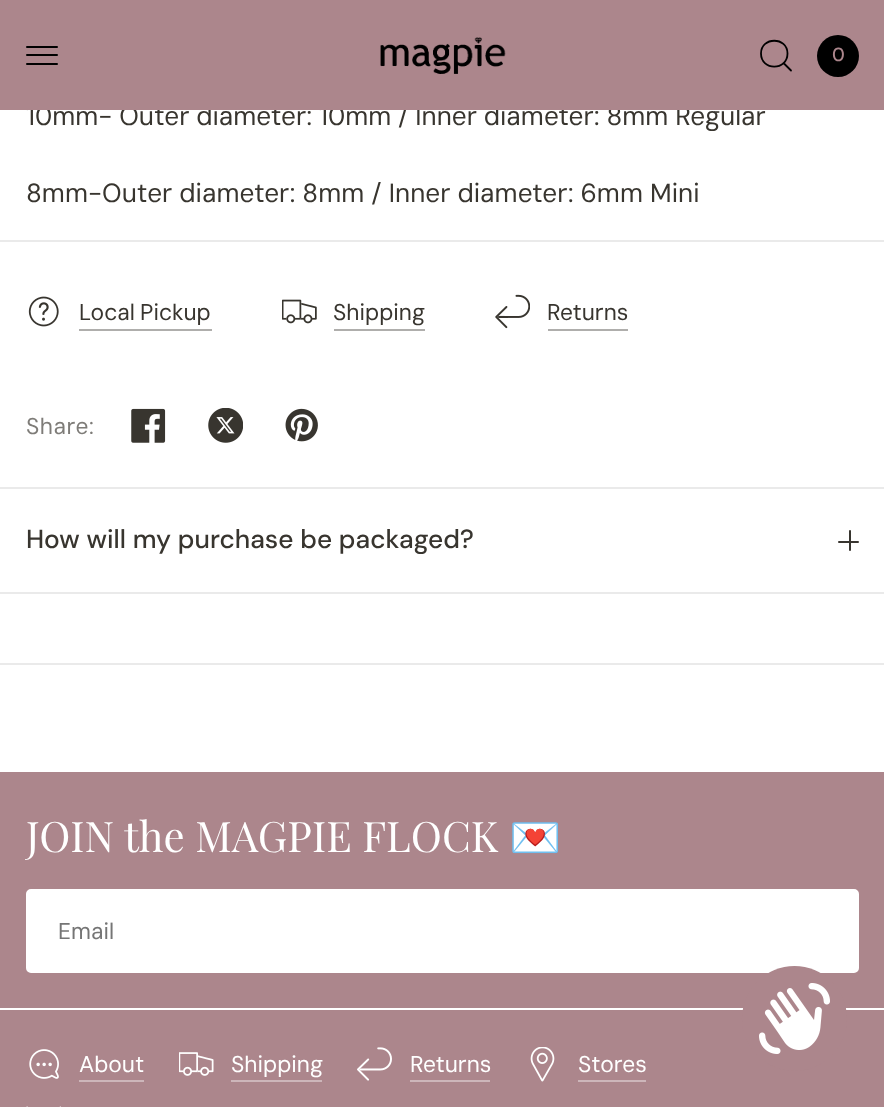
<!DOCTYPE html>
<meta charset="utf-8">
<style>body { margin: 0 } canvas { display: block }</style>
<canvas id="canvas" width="884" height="1107"></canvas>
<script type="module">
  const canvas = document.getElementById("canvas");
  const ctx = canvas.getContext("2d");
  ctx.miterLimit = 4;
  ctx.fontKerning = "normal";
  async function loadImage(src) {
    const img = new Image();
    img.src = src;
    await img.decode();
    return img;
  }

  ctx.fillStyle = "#ffffff";
  ctx.fillRect(0, 0, 884, 1107);
  ctx.wordSpacing = "-0.25px";
  ctx.font = "26.25px DM Sans";
  ctx.fillStyle = "#38352f";
  ctx.fillText("10mm- Outer diameter: 10mm / Inner diameter: 8mm Regular", 26, 125);
  ctx.fillStyle = "#ac868c";
  ctx.fillRect(0, 0, 884, 110);
  ctx.fillStyle = "#000000";
  ctx.beginPath();
  ctx.roundRect(26, 46, 32, 2, 1);
  ctx.fill();
  ctx.beginPath();
  ctx.roundRect(26, 54, 32, 2, 1);
  ctx.fill();
  ctx.beginPath();
  ctx.roundRect(26, 63, 32, 2, 1);
  ctx.fill();
  ctx.drawImage(await loadImage("img1.png"), 380, 37, 126, 37);
  ctx.beginPath();
  ctx.moveTo(783.5, 63);
  ctx.lineTo(791, 70.5);
  ctx.moveTo(787.5, 53.5);
  ctx.bezierCurveTo(787.5, 71, 761, 71, 761, 53.5);
  ctx.bezierCurveTo(761, 36.5, 787.5, 36.5, 787.5, 53.5);
  ctx.closePath();
  ctx.strokeStyle = "#000000";
  ctx.lineWidth = 1.8;
  ctx.lineCap = "round";
  ctx.lineJoin = "round";
  ctx.stroke();
  ctx.beginPath();
  ctx.arc(838, 56, 21, 0, Math.PI * 2);
  ctx.fill();
  ctx.wordSpacing = "0px";
  ctx.font = "500 19px 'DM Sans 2'";
  ctx.fillStyle = "#ac868c";
  ctx.fillText("0", 832, 61);
  ctx.fillStyle = "#eaeaea";
  ctx.fillRect(0, 663, 884, 2);
  ctx.fillRect(0, 240, 884, 2);
  ctx.font = "26.25px DM Sans";
  ctx.fillStyle = "#38352f";
  ctx.fillText("8mm-Outer diameter: 8mm / Inner diameter: 6mm Mini", 26, 202);
  ctx.drawImage(await loadImage("img2.png"), 28, 296, 31, 31);
  ctx.wordSpacing = "-1px";
  ctx.font = "22.75px DM Sans";
  ctx.fillText("Local Pickup", 79, 320);
  ctx.fillStyle = "#afaeac";
  ctx.fillRect(79, 329, 133, 2);
  ctx.drawImage(await loadImage("img3.png"), 282, 299, 35, 25);
  ctx.wordSpacing = "0px";
  ctx.fillStyle = "#38352f";
  ctx.fillText("Shipping", 333, 320);
  ctx.fillStyle = "#afaeac";
  ctx.fillRect(334, 329, 91, 2);
  ctx.drawImage(await loadImage("img4.png"), 495, 294, 35, 35);
  ctx.fillStyle = "#38352f";
  ctx.fillText("Returns", 547, 320);
  ctx.fillStyle = "#afaeac";
  ctx.fillRect(548, 329, 80, 2);
  ctx.letterSpacing = "0.5px";
  ctx.fillStyle = "#7e7c78";
  ctx.fillText("Share:", 26, 434);
  ctx.drawImage(await loadImage("img5.png"), 131, 408, 35, 35);
  ctx.drawImage(await loadImage("img6.png"), 208, 408, 35, 35);
  ctx.drawImage(await loadImage("img7.png"), 285, 408, 33, 34);
  ctx.fillStyle = "#eaeaea";
  ctx.fillRect(0, 487, 884, 2);
  ctx.fillRect(0, 592, 884, 2);
  ctx.letterSpacing = "0px";
  ctx.font = "500 26.25px DM Sans";
  ctx.fillStyle = "#38352f";
  ctx.fillText("How will my purchase be packaged?", 26, 548);
  ctx.beginPath();
  ctx.roundRect(849, 530, 2, 21, 1);
  ctx.fill();
  ctx.beginPath();
  ctx.roundRect(838, 541, 21, 2, 1);
  ctx.fill();
  ctx.fillStyle = "#ac868c";
  ctx.fillRect(0, 772, 884, 236);
  ctx.font = "42px Playfair Display";
  ctx.fillStyle = "#ffffff";
  ctx.fillText("JOIN the MAGPIE FLOCK", 26, 852);
  ctx.font = "42px Noto Color Emoji";
  ctx.fillText("💌", 509, 852);
  ctx.beginPath();
  ctx.roundRect(27, 890, 831, 82, 4);
  ctx.fill();
  ctx.strokeStyle = "#ffffff";
  ctx.lineWidth = 2;
  ctx.lineJoin = "miter";
  ctx.stroke();
  ctx.font = "22.75px DM Sans";
  ctx.fillStyle = "#757575";
  ctx.fillText("Email", 58, 939);
  ctx.fillStyle = "#ac868c";
  ctx.fillRect(0, 1010, 884, 97);
  ctx.drawImage(await loadImage("img8.png"), 29, 1049, 30, 30);
  ctx.fillStyle = "#ffffff";
  ctx.fillText("About", 79, 1072);
  ctx.fillStyle = "#cdb6ba";
  ctx.fillRect(79, 1080, 65, 2);
  ctx.drawImage(await loadImage("img9.png"), 179, 1052, 35, 24);
  ctx.fillStyle = "#ffffff";
  ctx.fillText("Shipping", 231, 1072);
  ctx.fillStyle = "#cdb6ba";
  ctx.fillRect(231, 1080, 91, 2);
  ctx.drawImage(await loadImage("img10.png"), 357, 1047, 35, 34);
  ctx.fillStyle = "#ffffff";
  ctx.fillText("Returns", 410, 1072);
  ctx.fillStyle = "#cdb6ba";
  ctx.fillRect(410, 1080, 80, 2);
  ctx.drawImage(await loadImage("img11.png"), 530, 1047, 25, 35);
  ctx.fillStyle = "#ffffff";
  ctx.fillText("Stores", 578, 1072);
  ctx.fillStyle = "#cdb6ba";
  ctx.fillRect(578, 1080, 68, 2);
  ctx.drawImage(await loadImage("img12.png"), 26, 1106, 35, 1);
  ctx.fillStyle = "#ac868c";
  ctx.beginPath();
  ctx.arc(794.5, 1018.5, 52.5, 0, Math.PI * 2);
  ctx.fill();
  ctx.drawImage(await loadImage("img13.png"), 759, 983, 71, 71);
</script>
